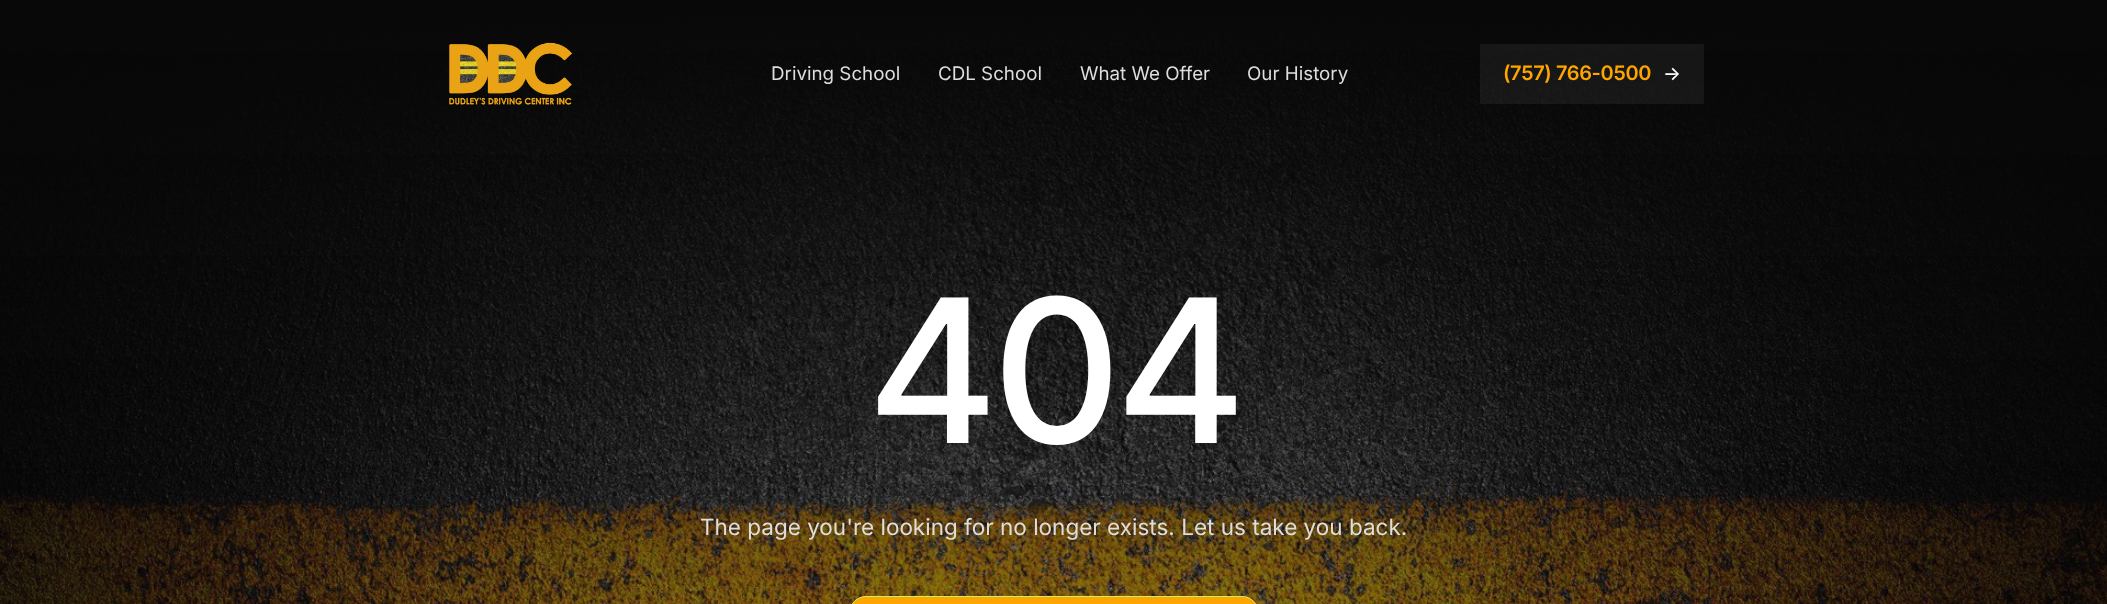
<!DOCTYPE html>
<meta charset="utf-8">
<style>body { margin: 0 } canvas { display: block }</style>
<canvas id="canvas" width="2107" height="604"></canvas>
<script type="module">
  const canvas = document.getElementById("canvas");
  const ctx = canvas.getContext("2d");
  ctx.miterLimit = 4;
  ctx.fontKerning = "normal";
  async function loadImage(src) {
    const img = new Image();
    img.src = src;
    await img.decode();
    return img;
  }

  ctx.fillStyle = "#ffffff";
  ctx.fillRect(0, 0, 2107, 604);
  ctx.drawImage(await loadImage("img1.png"), 0, 0, 2107, 604);
  ctx.drawImage(await loadImage("img2.png"), 449, 42, 123, 63);
  ctx.font = "18.75px Inter";
  ctx.fillStyle = "#dedede";
  ctx.fillText("Driving School", 771, 80);
  ctx.fillText("CDL School", 938, 80);
  ctx.fillText("What We Offer", 1080, 80);
  ctx.fillText("Our History", 1247, 80);
  ctx.fillStyle = "rgba(255, 255, 255, 0.06)";
  ctx.fillRect(1480, 44, 224, 60);
  ctx.letterSpacing = "-0.4px";
  ctx.font = "600 20px Inter";
  ctx.fillStyle = "#ffa500";
  ctx.fillText("(757) 766-0500", 1503, 80);
  ctx.letterSpacing = "0px";
  ctx.font = "500 18.75px Inter";
  ctx.fillStyle = "#ffffff";
  ctx.fillText("->", 1663, 80);
  ctx.letterSpacing = "-6px";
  ctx.font = "500 200px Inter";
  ctx.fillText("404", 867, 443);
  ctx.letterSpacing = "0px";
  ctx.font = "22.5px Inter";
  ctx.fillStyle = "#dedede";
  ctx.fillText("The page you're looking for no longer exists. Let us take you back.", 700, 535);
  ctx.fillStyle = "#ffa500";
  ctx.beginPath();
  ctx.roundRect(849.5, 596.5, 409, 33, 24.5);
  ctx.fill();
  ctx.strokeStyle = "#c6f268";
  ctx.stroke();
</script>
